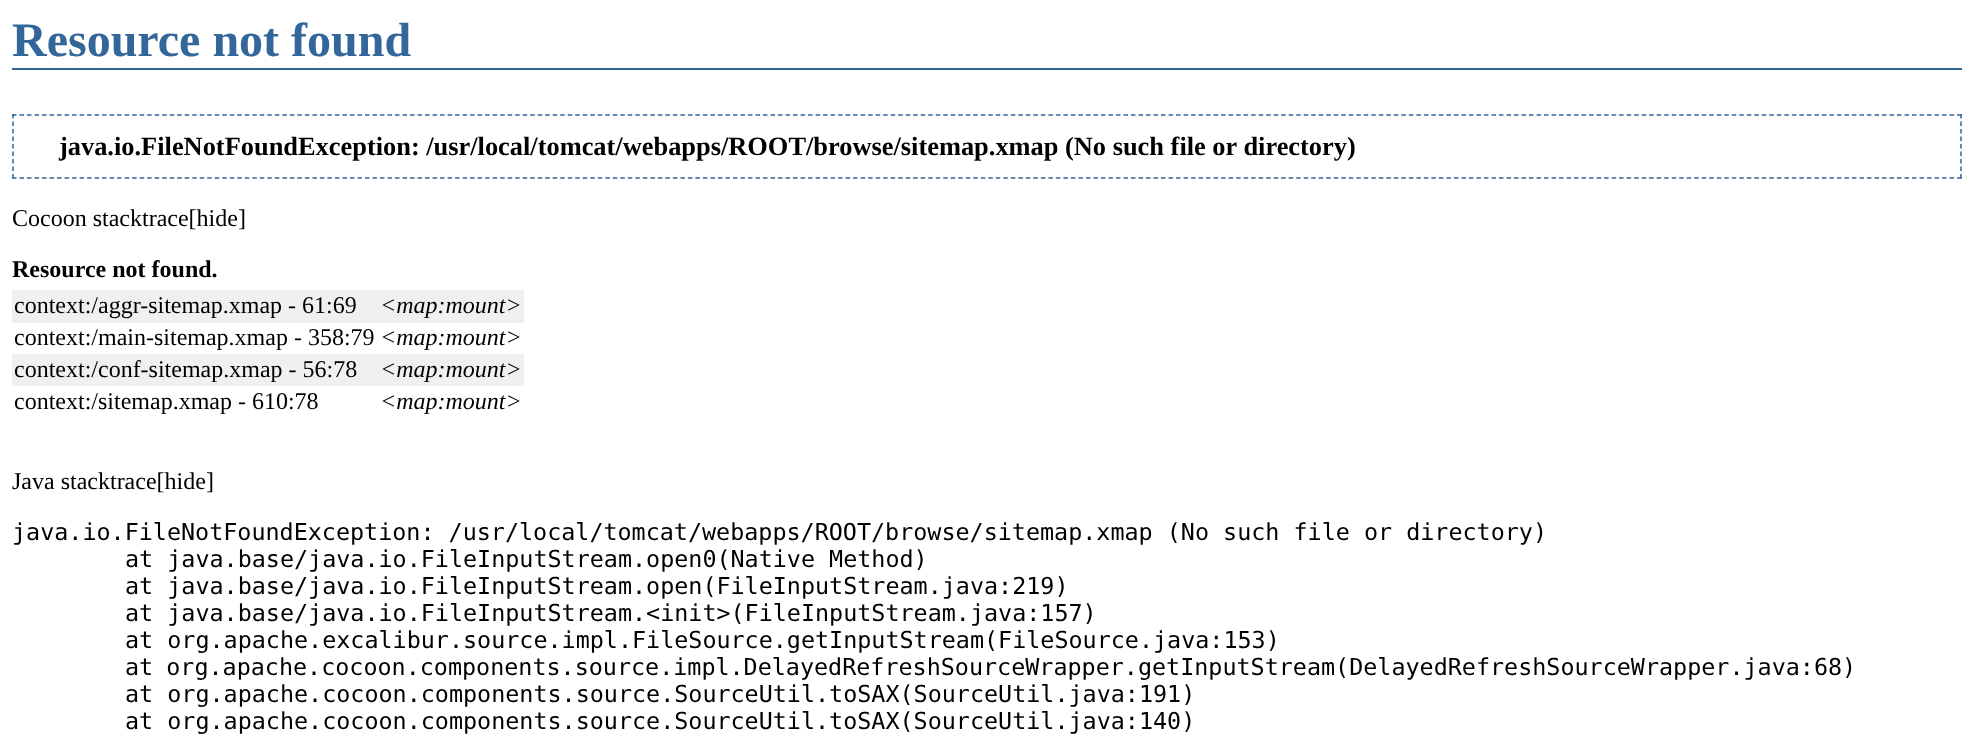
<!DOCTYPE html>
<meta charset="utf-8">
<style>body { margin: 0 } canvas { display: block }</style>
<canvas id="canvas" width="1973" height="741"></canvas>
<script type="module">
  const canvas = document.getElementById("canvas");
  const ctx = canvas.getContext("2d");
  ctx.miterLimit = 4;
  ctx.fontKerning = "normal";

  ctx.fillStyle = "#ffffff";
  ctx.fillRect(0, 0, 1973, 741);
  ctx.fillStyle = "#336699";
  ctx.fillRect(12, 68, 1950, 2);
  ctx.font = "bold 48px Liberation Serif";
  ctx.fillText("Resource not found", 12, 56);
  ctx.beginPath();
  ctx.moveTo(12, 115);
  ctx.lineTo(1962, 115);
  ctx.strokeStyle = "#336699";
  ctx.lineWidth = 1.5;
  ctx.setLineDash([4.5, 3.01]);
  ctx.stroke();
  ctx.beginPath();
  ctx.moveTo(1961, 114);
  ctx.lineTo(1961, 178.5);
  ctx.setLineDash([4.5, 3]);
  ctx.stroke();
  ctx.beginPath();
  ctx.moveTo(12, 178);
  ctx.lineTo(1962, 178);
  ctx.setLineDash([4.5, 3.01]);
  ctx.stroke();
  ctx.beginPath();
  ctx.moveTo(13, 114);
  ctx.lineTo(13, 178.5);
  ctx.setLineDash([4.5, 3]);
  ctx.stroke();
  ctx.font = "bold 26.4px Liberation Serif";
  ctx.fillStyle = "#000000";
  ctx.fillText("java.io.FileNotFoundException: /usr/local/tomcat/webapps/ROOT/browse/sitemap.xmap (No such file or directory)", 59, 155);
  ctx.font = "24px Liberation Serif";
  ctx.fillText("Cocoon stacktrace[hide]", 12, 226);
  ctx.font = "bold 24px Liberation Serif";
  ctx.fillText("Resource not found.", 12, 277);
  ctx.fillStyle = "#f0f0f0";
  ctx.fillRect(12, 290, 512, 33);
  ctx.font = "24px Liberation Serif";
  ctx.fillStyle = "#000000";
  ctx.fillText("context:/aggr-sitemap.xmap - 61:69", 14, 313);
  ctx.font = "italic 24px Liberation Serif";
  ctx.fillText("<map:mount>", 380, 313);
  ctx.font = "24px Liberation Serif";
  ctx.fillText("context:/main-sitemap.xmap - 358:79", 14, 345);
  ctx.font = "italic 24px Liberation Serif";
  ctx.fillText("<map:mount>", 380, 345);
  ctx.fillStyle = "#f0f0f0";
  ctx.fillRect(12, 354, 512, 32);
  ctx.font = "24px Liberation Serif";
  ctx.fillStyle = "#000000";
  ctx.fillText("context:/conf-sitemap.xmap - 56:78", 14, 377);
  ctx.font = "italic 24px Liberation Serif";
  ctx.fillText("<map:mount>", 380, 377);
  ctx.font = "24px Liberation Serif";
  ctx.fillText("context:/sitemap.xmap - 610:78", 14, 409);
  ctx.font = "italic 24px Liberation Serif";
  ctx.fillText("<map:mount>", 380, 409);
  ctx.font = "24px Liberation Serif";
  ctx.fillText("Java stacktrace[hide]", 12, 489);
  ctx.font = "23.4px DejaVu Sans Mono";
  ctx.fillText("java.io.FileNotFoundException: /usr/local/tomcat/webapps/ROOT/browse/sitemap.xmap (No such file or directory)", 12, 540);
  ctx.fillText("at java.base/java.io.FileInputStream.open0(Native Method)", 125, 567);
  ctx.fillText("at java.base/java.io.FileInputStream.open(FileInputStream.java:219)", 125, 594);
  ctx.fillText("at java.base/java.io.FileInputStream.<init>(FileInputStream.java:157)", 125, 621);
  ctx.fillText("at org.apache.excalibur.source.impl.FileSource.getInputStream(FileSource.java:153)", 125, 648);
  ctx.wordSpacing = "-1px";
  ctx.fillText("at org.apache.cocoon.components.source.impl.DelayedRefreshSourceWrapper.getInputStream(DelayedRefreshSourceWrapper.java:68)", 125, 675);
  ctx.wordSpacing = "0px";
  ctx.fillText("at org.apache.cocoon.components.source.SourceUtil.toSAX(SourceUtil.java:191)", 125, 702);
  ctx.fillText("at org.apache.cocoon.components.source.SourceUtil.toSAX(SourceUtil.java:140)", 125, 729);
</script>
